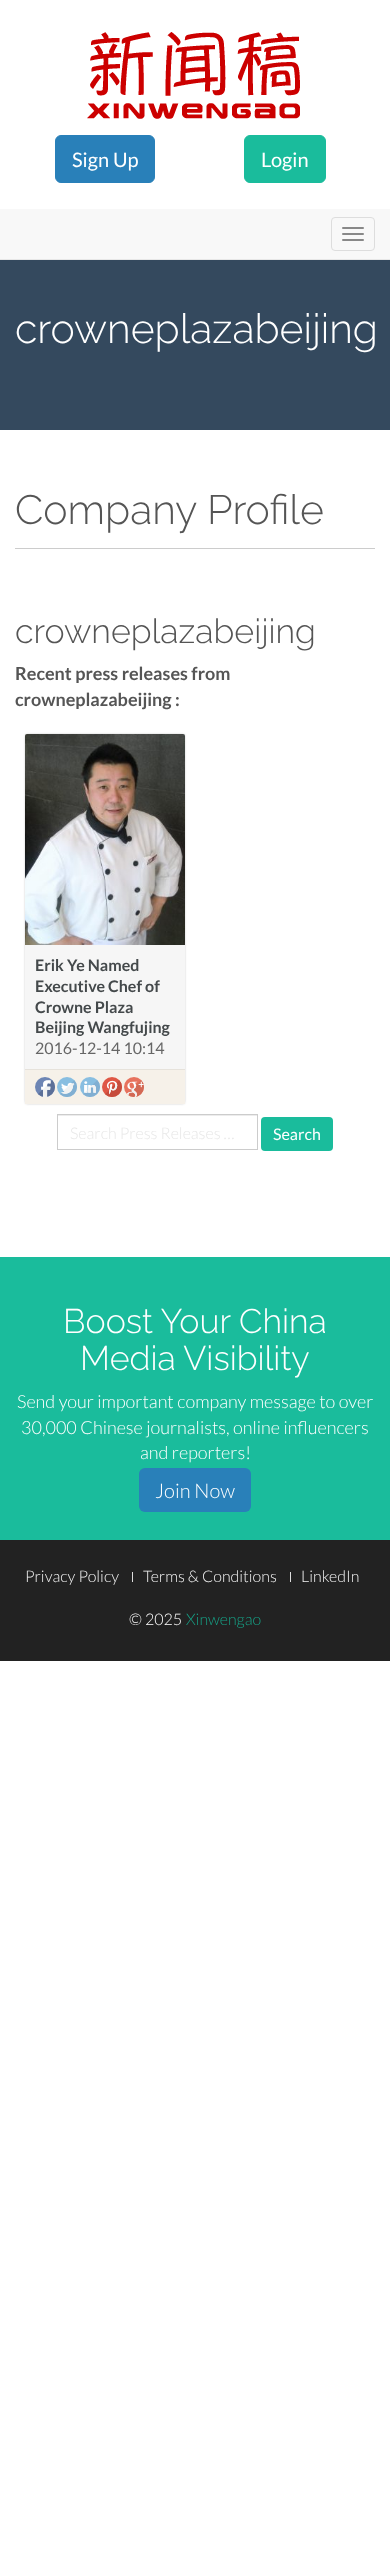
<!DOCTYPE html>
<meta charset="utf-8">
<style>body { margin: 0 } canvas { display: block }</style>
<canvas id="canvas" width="390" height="2555"></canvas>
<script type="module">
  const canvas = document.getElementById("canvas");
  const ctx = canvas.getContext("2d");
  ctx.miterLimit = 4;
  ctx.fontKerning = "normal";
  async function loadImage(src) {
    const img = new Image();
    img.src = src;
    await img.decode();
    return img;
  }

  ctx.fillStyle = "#ffffff";
  ctx.fillRect(0, 0, 390, 2555);
  ctx.drawImage(await loadImage("img1.png"), 87, 32, 213, 87);
  ctx.fillStyle = "#2980b9";
  ctx.beginPath();
  ctx.roundRect(55.5, 135.5, 99, 47, 5.5);
  ctx.fill();
  ctx.strokeStyle = "#2980b9";
  ctx.stroke();
  ctx.font = "20px Lato";
  ctx.fillStyle = "#ffffff";
  ctx.fillText("Sign Up", 72, 167);
  ctx.fillStyle = "#1abc9c";
  ctx.beginPath();
  ctx.roundRect(244.5, 135.5, 81, 47, 5.5);
  ctx.fill();
  ctx.strokeStyle = "#1abc9c";
  ctx.stroke();
  ctx.fillStyle = "#ffffff";
  ctx.fillText("Login", 261, 167);
  ctx.fillStyle = "#f8f8f8";
  ctx.fillRect(0, 209, 390, 50);
  ctx.fillStyle = "#e7e7e7";
  ctx.fillRect(0, 259, 390, 1);
  ctx.beginPath();
  ctx.roundRect(331.5, 217.5, 43, 33, 3.5);
  ctx.strokeStyle = "#dddddd";
  ctx.stroke();
  ctx.fillStyle = "#888888";
  ctx.beginPath();
  ctx.roundRect(342, 227, 22, 2, 1);
  ctx.fill();
  ctx.beginPath();
  ctx.roundRect(342, 233, 22, 2, 1);
  ctx.fill();
  ctx.beginPath();
  ctx.roundRect(342, 239, 22, 2, 1);
  ctx.fill();
  ctx.fillStyle = "#34495e";
  ctx.fillRect(0, 260, 390, 170);
  ctx.font = "300 41px Raleway";
  ctx.fillStyle = "#ffffff";
  ctx.fillText("crowneplazabeijing", 15, 343);
  ctx.fillStyle = "#555555";
  ctx.fillText("Company Profile", 15, 524);
  ctx.fillStyle = "#cccccc";
  ctx.fillRect(15, 548, 360, 1);
  ctx.font = "300 34px Raleway";
  ctx.fillStyle = "#555555";
  ctx.fillText("crowneplazabeijing", 15, 643);
  ctx.font = "bold 18px Lato";
  ctx.fillText("Recent press releases from", 15, 680);
  ctx.fillText("crowneplazabeijing :", 15, 706);
  ctx.fillStyle = "#959595";
  ctx.filter = "blur(1.5px)";
  ctx.beginPath();
  ctx.roundRect(26, 735, 158, 368, 1);
  ctx.fill();
  ctx.filter = "none";
  ctx.drawImage(await loadImage("img2.png"), 25, 734, 160, 211);
  ctx.fillStyle = "#f6f6f6";
  ctx.fillRect(25, 945, 160, 124);
  ctx.font = "bold 16px Lato";
  ctx.fillStyle = "#44494b";
  ctx.fillText("Erik Ye Named", 35, 971);
  ctx.fillText("Executive Chef of", 35, 992);
  ctx.fillText("Crowne Plaza", 35, 1013);
  ctx.fillText("Beijing Wangfujing", 35, 1033);
  ctx.font = "16px Lato";
  ctx.fillStyle = "#666666";
  ctx.fillText("2016-12-14 10:14", 35, 1054);
  ctx.fillStyle = "#f6f1e9";
  ctx.fillRect(25, 1070, 160, 34);
  ctx.fillStyle = "#e6e2db";
  ctx.fillRect(25, 1069, 160, 1);
  ctx.drawImage(await loadImage("img3.png"), 35, 1077, 20, 20);
  ctx.drawImage(await loadImage("img4.png"), 57, 1077, 20, 20);
  ctx.drawImage(await loadImage("img5.png"), 80, 1077, 20, 20);
  ctx.drawImage(await loadImage("img6.png"), 102, 1077, 20, 20);
  ctx.drawImage(await loadImage("img7.png"), 124, 1077, 20, 20);
  ctx.fillStyle = "#ececec";
  ctx.fillRect(58, 1115, 199, 1);
  ctx.strokeStyle = "#cccccc";
  ctx.strokeRect(57.5, 1114.5, 200, 35);
  ctx.font = "300 16px Lato";
  ctx.fillStyle = "#e7e7e7";
  ctx.fillText("Search Press Releases …", 70, 1139);
  ctx.fillStyle = "#1abc9c";
  ctx.beginPath();
  ctx.roundRect(261, 1117, 72, 34, 4);
  ctx.fill();
  ctx.font = "16px Lato";
  ctx.fillStyle = "#ffffff";
  ctx.fillText("Search", 273, 1140);
  ctx.fillStyle = "#1abc9c";
  ctx.fillRect(0, 1257, 390, 283);
  ctx.font = "300 34px Raleway";
  ctx.fillStyle = "#ffffff";
  ctx.fillText("Boost Your China", 63, 1333);
  ctx.fillText("Media Visibility", 80, 1370);
  ctx.font = "300 18px Lato";
  ctx.fillText("Send your important company message to over", 17, 1408);
  ctx.fillText("30,000 Chinese journalists, online influencers", 21, 1434);
  ctx.fillText("and reporters!", 140, 1459);
  ctx.fillStyle = "#2980b9";
  ctx.beginPath();
  ctx.roundRect(139, 1468, 112, 44, 6);
  ctx.fill();
  ctx.font = "300 20px Lato";
  ctx.fillStyle = "#ffffff";
  ctx.fillText("Join Now", 155, 1498);
  ctx.fillStyle = "#222222";
  ctx.fillRect(0, 1540, 390, 121);
  ctx.font = "300 16px Lato";
  ctx.fillStyle = "#f2f2f2";
  ctx.fillText("Privacy Policy", 25, 1582);
  ctx.fillStyle = "#dddddd";
  ctx.fillRect(132, 1572, 1, 10);
  ctx.fillStyle = "#f2f2f2";
  ctx.fillText("Terms & Conditions", 143, 1582);
  ctx.fillStyle = "#dddddd";
  ctx.fillRect(290, 1572, 1, 10);
  ctx.fillStyle = "#f2f2f2";
  ctx.fillText("LinkedIn", 301, 1582);
  ctx.fillStyle = "#ffffff";
  ctx.fillText("© 2025", 129, 1625);
  ctx.fillStyle = "#16a085";
  ctx.fillText("Xinwengao", 186, 1625);
</script>
